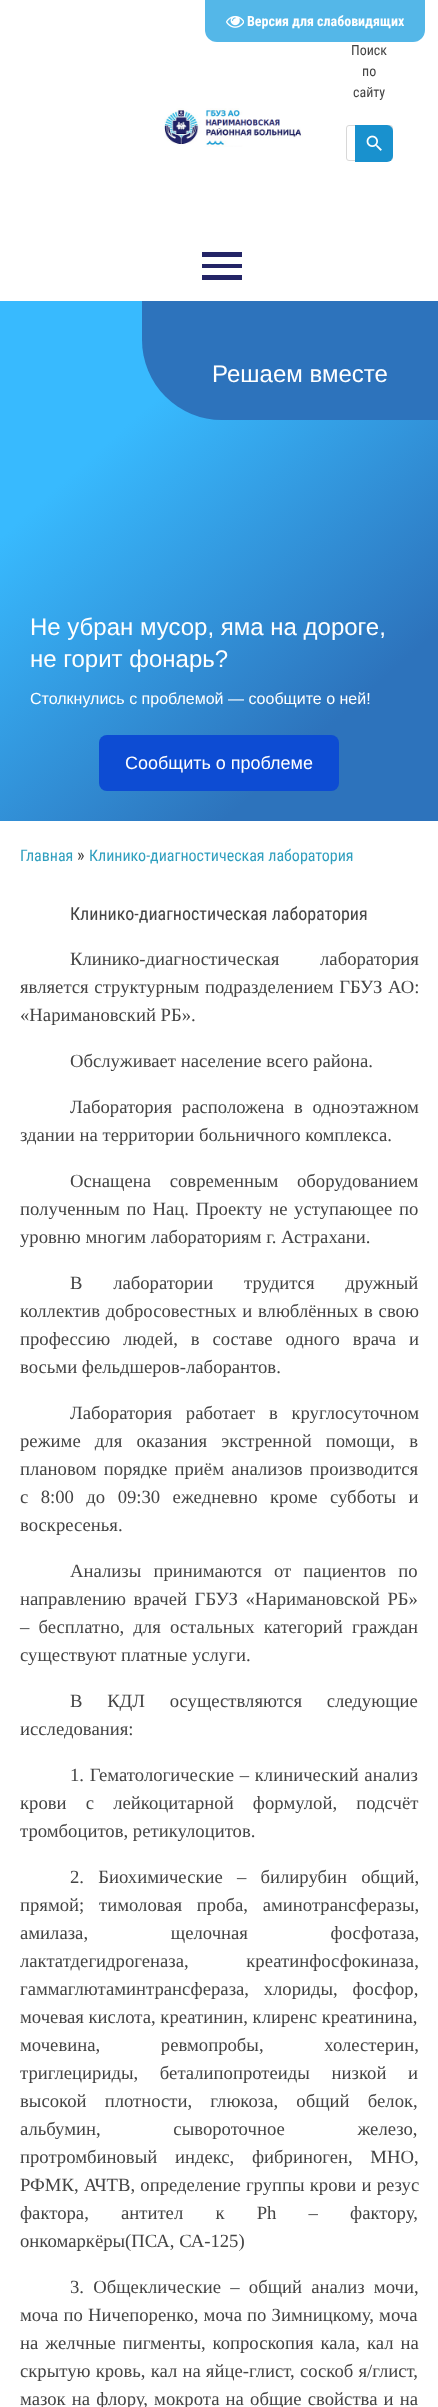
<!DOCTYPE html>
<meta charset="utf-8">
<style>body { margin: 0 } canvas { display: block }</style>
<canvas id="canvas" width="438" height="2407"></canvas>
<script type="module">
  const canvas = document.getElementById("canvas");
  const ctx = canvas.getContext("2d");
  ctx.miterLimit = 4;
  ctx.fontKerning = "normal";
  async function loadImage(src) {
    const img = new Image();
    img.src = src;
    await img.decode();
    return img;
  }
  let gradient;

  ctx.fillStyle = "#ffffff";
  ctx.fillRect(0, 0, 438, 2407);
  ctx.fillStyle = "#54b7e8";
  ctx.beginPath();
  ctx.roundRect(205, 0, 220, 42, [0, 0, 12, 12]);
  ctx.fill();
  ctx.drawImage(await loadImage("img1.png"), 226, 15, 18, 13);
  ctx.font = "bold 14px Roboto Condensed";
  ctx.fillStyle = "#ffffff";
  ctx.fillText("Версия для слабовидящих", 247, 26);
  ctx.font = "14px Roboto Condensed";
  ctx.fillStyle = "#444444";
  ctx.fillText("Поиск", 351, 55);
  ctx.fillText("по", 362, 76);
  ctx.fillText("сайту", 353, 97);
  ctx.beginPath();
  ctx.roundRect(346.5, 125.5, 46, 35, 2.5);
  ctx.strokeStyle = "#d8d8d8";
  ctx.stroke();
  ctx.fillStyle = "#1991ce";
  ctx.beginPath();
  ctx.roundRect(355, 125, 38, 37, [0, 6, 6, 0]);
  ctx.fill();
  ctx.drawImage(await loadImage("img2.png"), 366, 135, 16, 16);
  ctx.drawImage(await loadImage("img3.png"), 164, 108, 139, 39);
  ctx.fillStyle = "#232466";
  ctx.beginPath();
  ctx.moveTo(202, 252);
  ctx.lineTo(242, 252);
  ctx.lineTo(242, 257);
  ctx.lineTo(202, 257);
  ctx.closePath();
  ctx.moveTo(202, 268);
  ctx.lineTo(202, 264);
  ctx.lineTo(242, 264);
  ctx.lineTo(242, 268);
  ctx.closePath();
  ctx.moveTo(202, 280);
  ctx.lineTo(202, 275);
  ctx.lineTo(242, 275);
  ctx.lineTo(242, 280);
  ctx.closePath();
  ctx.fill();
  gradient = ctx.createLinearGradient(-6.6, 307, 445, 815);
  gradient.addColorStop(0.26, "#38bafe");
  gradient.addColorStop(0.79, "#2d73bc");
  ctx.fillStyle = gradient;
  ctx.fillRect(0, 301, 438, 520);
  ctx.fillStyle = "#2d73bc";
  ctx.beginPath();
  ctx.roundRect(142, 301, 296, 119, [0, 0, 0, 80]);
  ctx.fill();
  ctx.font = "24px Liberation Sans";
  ctx.fillStyle = "#ffffff";
  ctx.fillText("Решаем вместе", 212, 382);
  ctx.fillText("Не убран мусор, яма на дороге,", 30, 635);
  ctx.fillText("не горит фонарь?", 30, 667);
  ctx.font = "16px Liberation Sans";
  ctx.fillText("Столкнулись с проблемой — сообщите о ней!", 30, 704);
  ctx.fillStyle = "#0d4cd3";
  ctx.beginPath();
  ctx.roundRect(99, 735, 240, 56, 8);
  ctx.fill();
  ctx.font = "18px Liberation Sans";
  ctx.fillStyle = "#ffffff";
  ctx.fillText("Сообщить о проблеме", 125, 769);
  ctx.font = "16px Roboto Condensed";
  ctx.fillStyle = "#309fbe";
  ctx.fillText("Главная", 20, 861);
  ctx.font = "18px Roboto Condensed";
  ctx.fillStyle = "#444444";
  ctx.fillText("»", 77, 861);
  ctx.font = "16px Roboto Condensed";
  ctx.fillStyle = "#309fbe";
  ctx.fillText("Клинико-диагностическая лаборатория", 89, 861);
  ctx.font = "18px Roboto Condensed";
  ctx.fillStyle = "#444444";
  ctx.fillText("Клинико-диагностическая лаборатория", 70, 920);
  ctx.wordSpacing = "36px";
  ctx.font = "18.7px Liberation Serif";
  ctx.fillText("Клинико-диагностическая лаборатория", 70, 965);
  ctx.wordSpacing = "1px";
  ctx.fillText("является структурным подразделением ГБУЗ АО:", 20, 993);
  ctx.wordSpacing = "0px";
  ctx.fillText("«Наримановский РБ».", 20, 1021);
  ctx.fillText("Обслуживает население всего района.", 70, 1067);
  ctx.wordSpacing = "5px";
  ctx.fillText("Лаборатория расположена в одноэтажном", 70, 1113);
  ctx.wordSpacing = "0px";
  ctx.fillText("здании на территории больничного комплекса.", 20, 1141);
  ctx.wordSpacing = "14px";
  ctx.fillText("Оснащена современным оборудованием", 70, 1187);
  ctx.wordSpacing = "2px";
  ctx.fillText("полученным по Нац. Проекту не уступающее по", 20, 1215);
  ctx.wordSpacing = "0px";
  ctx.fillText("уровню многим лабораториям г. Астрахани.", 20, 1243);
  ctx.wordSpacing = "26px";
  ctx.fillText("В лаборатории трудится дружный", 70, 1289);
  ctx.wordSpacing = "1px";
  ctx.fillText("коллектив добросовестных и влюблённых в свою", 20, 1317);
  ctx.wordSpacing = "8.25px";
  ctx.fillText("профессию людей, в составе одного врача и", 20, 1345);
  ctx.wordSpacing = "0px";
  ctx.fillText("восьми фельдшеров-лаборантов.", 20, 1373);
  ctx.wordSpacing = "9px";
  ctx.fillText("Лаборатория работает в круглосуточном", 70, 1419);
  ctx.wordSpacing = "9.5px";
  ctx.fillText("режиме для оказания экстренной помощи, в", 20, 1447);
  ctx.wordSpacing = "2.5px";
  ctx.fillText("плановом порядке приём анализов производится", 20, 1475);
  ctx.wordSpacing = "7.75px";
  ctx.fillText("с 8:00 до 09:30 ежедневно кроме субботы и", 20, 1503);
  ctx.wordSpacing = "0px";
  ctx.fillText("воскресенья.", 20, 1531);
  ctx.wordSpacing = "7.5px";
  ctx.fillText("Анализы принимаются от пациентов по", 70, 1577);
  ctx.wordSpacing = "3px";
  ctx.fillText("направлению врачей ГБУЗ «Наримановской РБ»", 20, 1605);
  ctx.wordSpacing = "4.5px";
  ctx.fillText("– бесплатно, для остальных категорий граждан", 20, 1633);
  ctx.wordSpacing = "0px";
  ctx.fillText("существуют платные услуги.", 20, 1661);
  ctx.wordSpacing = "20px";
  ctx.fillText("В КДЛ осуществляются следующие", 70, 1707);
  ctx.wordSpacing = "0px";
  ctx.fillText("исследования:", 20, 1735);
  ctx.wordSpacing = "1px";
  ctx.fillText("1. Гематологические – клинический анализ", 70, 1781);
  ctx.wordSpacing = "14.5px";
  ctx.fillText("крови с лейкоцитарной формулой, подсчёт", 20, 1809);
  ctx.wordSpacing = "0px";
  ctx.fillText("тромбоцитов, ретикулоцитов.", 20, 1837);
  ctx.wordSpacing = "9.5px";
  ctx.fillText("2. Биохимические – билирубин общий,", 70, 1883);
  ctx.wordSpacing = "10px";
  ctx.fillText("прямой; тимоловая проба, аминотрансферазы,", 20, 1911);
  ctx.wordSpacing = "78px";
  ctx.fillText("амилаза, щелочная фосфотаза,", 20, 1939);
  ctx.wordSpacing = "53px";
  ctx.fillText("лактатдегидрогеназа, креатинфосфокиназа,", 20, 1967);
  ctx.wordSpacing = "10px";
  ctx.fillText("гаммаглютаминтрансфераза, хлориды, фосфор,", 20, 1995);
  ctx.wordSpacing = "0px";
  ctx.fillText("мочевая кислота, креатинин, клиренс креатинина,", 20, 2023);
  ctx.wordSpacing = "56px";
  ctx.fillText("мочевина, ревмопробы, холестерин,", 20, 2051);
  ctx.wordSpacing = "17px";
  ctx.fillText("триглецириды, беталипопротеиды низкой и", 20, 2079);
  ctx.wordSpacing = "13.5px";
  ctx.fillText("высокой плотности, глюкоза, общий белок,", 20, 2107);
  ctx.wordSpacing = "68px";
  ctx.fillText("альбумин, сывороточное железо,", 20, 2135);
  ctx.wordSpacing = "13px";
  ctx.fillText("протромбиновый индекс, фибриноген, МНО,", 20, 2163);
  ctx.wordSpacing = "0.5px";
  ctx.fillText("РФМК, АЧТВ, определение группы крови и резус", 20, 2191);
  ctx.wordSpacing = "27.5px";
  ctx.fillText("фактора, антител к Ph – фактору,", 20, 2219);
  ctx.wordSpacing = "0px";
  ctx.fillText("онкомаркёры(ПСА, СА-125)", 20, 2247);
  ctx.wordSpacing = "4.5px";
  ctx.fillText("3. Общеклические – общий анализ мочи,", 70, 2293);
  ctx.wordSpacing = "0.5px";
  ctx.fillText("моча по Ничепоренко, моча по Зимницкому, моча", 20, 2321);
  ctx.wordSpacing = "2.25px";
  ctx.fillText("на желчные пигменты, копроскопия кала, кал на", 20, 2349);
  ctx.wordSpacing = "0.5px";
  ctx.fillText("скрытую кровь, кал на яйце-глист, соскоб я/глист,", 20, 2377);
  ctx.wordSpacing = "1.5px";
  ctx.fillText("мазок на флору, мокрота на общие свойства и на", 20, 2405);
</script>
